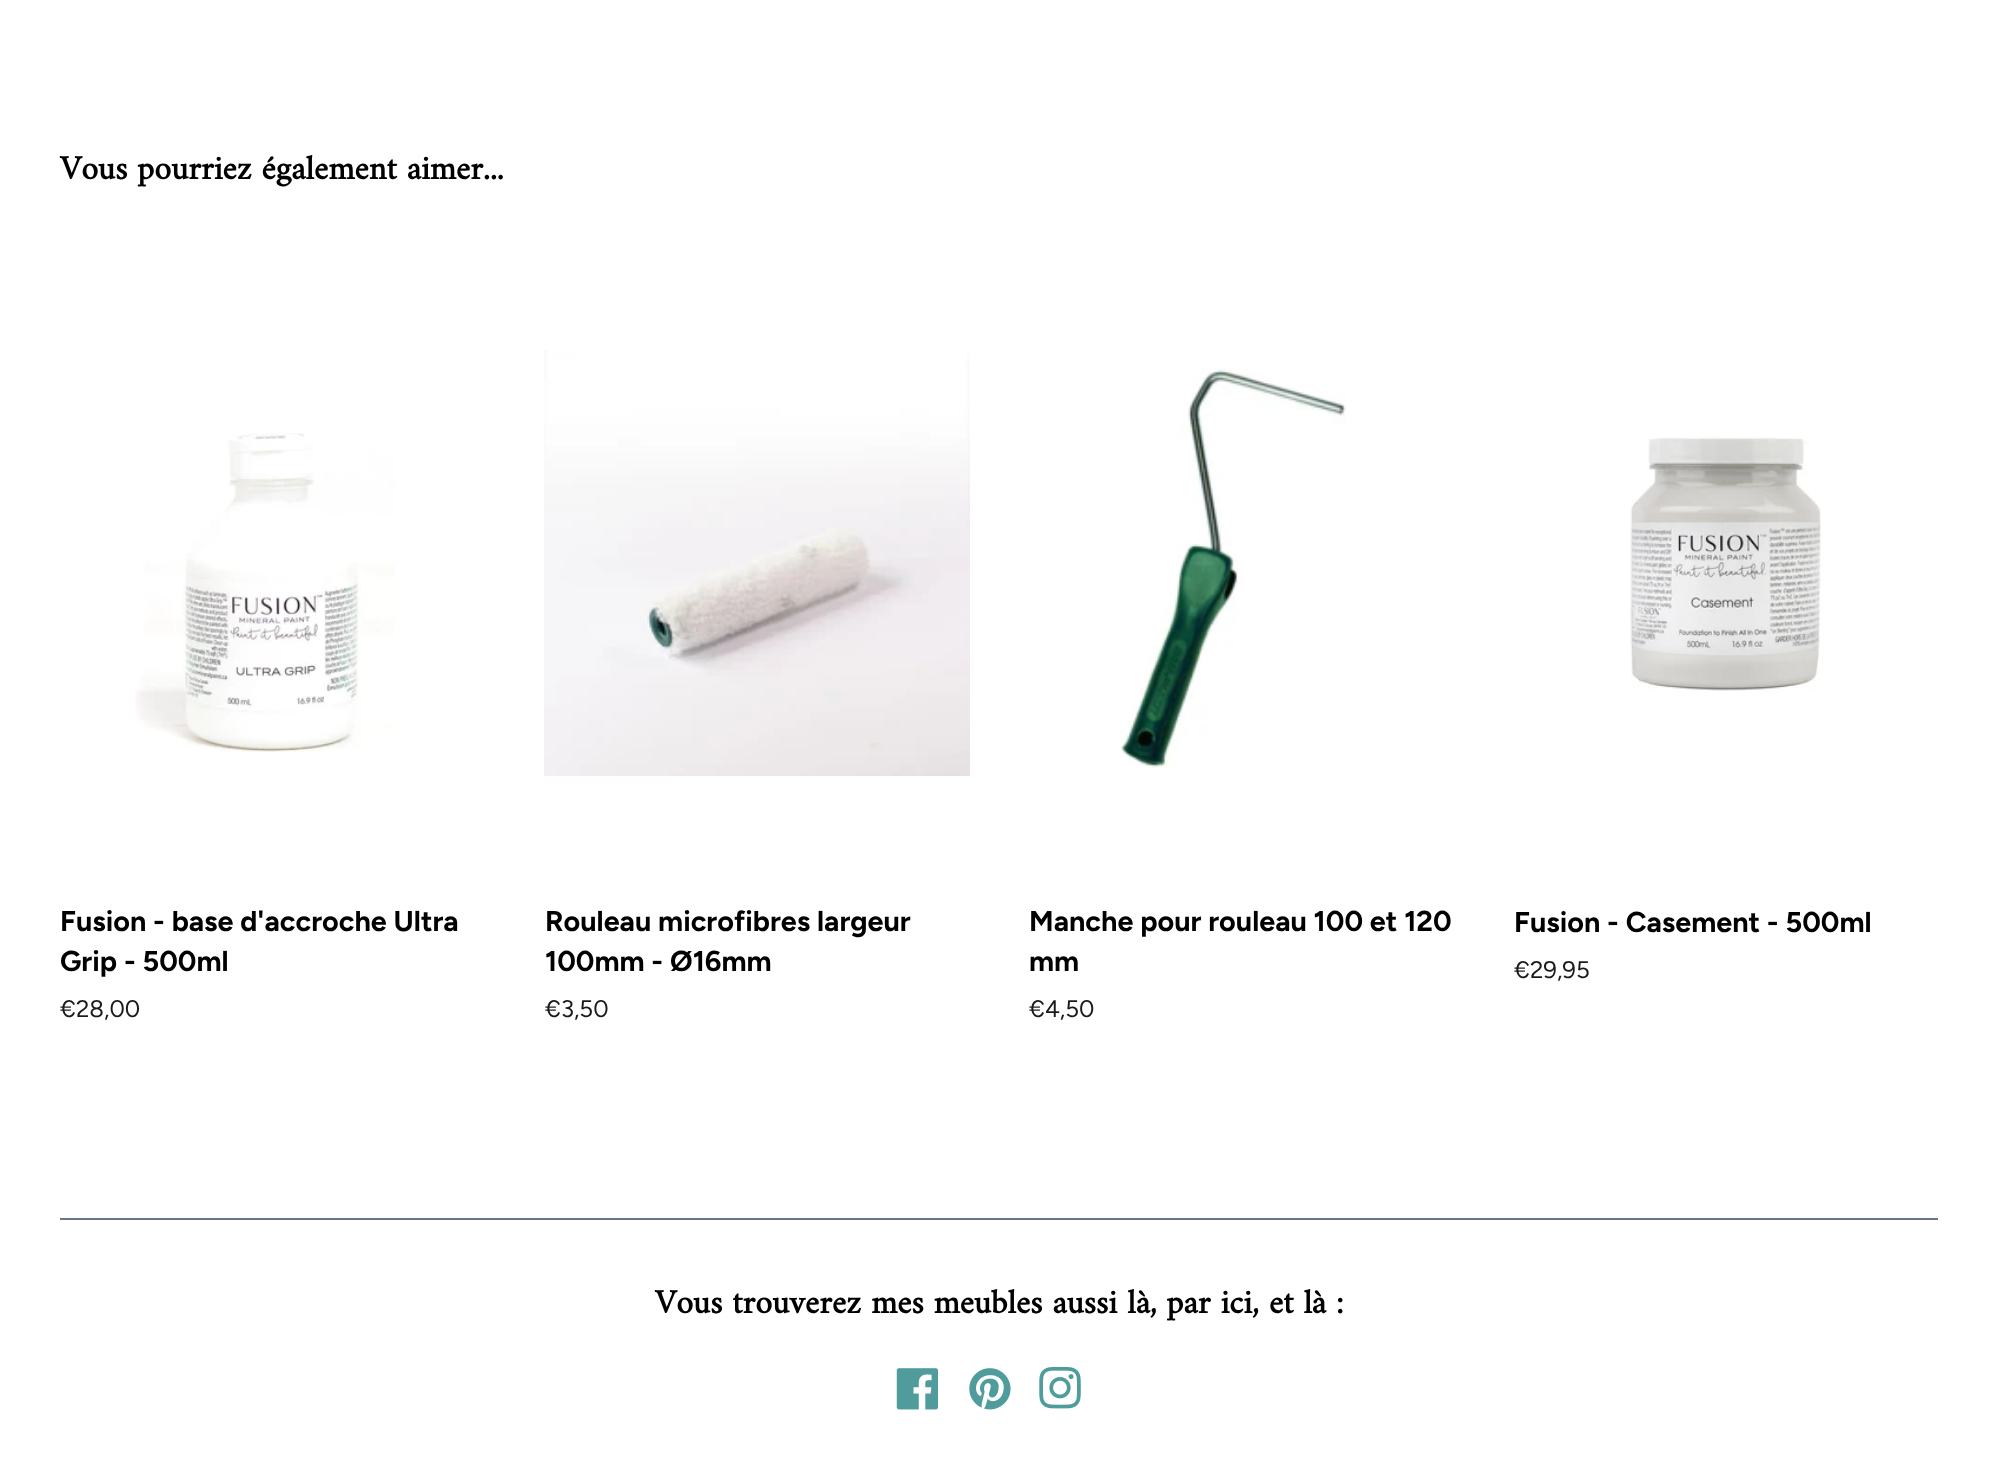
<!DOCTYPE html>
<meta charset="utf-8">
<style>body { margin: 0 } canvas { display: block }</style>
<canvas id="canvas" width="1998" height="1460"></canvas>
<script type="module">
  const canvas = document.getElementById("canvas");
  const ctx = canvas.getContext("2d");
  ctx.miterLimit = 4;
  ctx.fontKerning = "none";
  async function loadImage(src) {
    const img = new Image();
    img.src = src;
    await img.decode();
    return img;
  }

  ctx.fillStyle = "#ffffff";
  ctx.fillRect(0, 0, 1998, 1460);
  ctx.font = "bold 34px Amiri";
  ctx.fillStyle = "#000000";
  ctx.fillText("Vous pourriez également aimer...", 60, 179);
  ctx.drawImage(await loadImage("img1.png"), 135, 433, 260, 320);
  ctx.font = "bold 28.75px Figtree";
  ctx.fillText("Fusion - base d'accroche Ultra", 60, 931);
  ctx.fillText("Grip - 500ml", 60, 971);
  ctx.font = "24px Figtree";
  ctx.fillStyle = "#1a1a1a";
  ctx.fillText("€28,00", 60, 1017);
  ctx.drawImage(await loadImage("img2.png"), 544, 350, 426, 426);
  ctx.font = "bold 28.75px Figtree";
  ctx.fillStyle = "#000000";
  ctx.fillText("Rouleau microfibres largeur", 545, 931);
  ctx.fillText("100mm - Ø16mm", 545, 971);
  ctx.font = "24px Figtree";
  ctx.fillStyle = "#1a1a1a";
  ctx.fillText("€3,50", 545, 1017);
  ctx.drawImage(await loadImage("img3.png"), 1120, 368, 226, 400);
  ctx.font = "bold 28.75px Figtree";
  ctx.fillStyle = "#000000";
  ctx.fillText("Manche pour rouleau 100 et 120", 1029, 931);
  ctx.fillText("mm", 1029, 971);
  ctx.font = "24px Figtree";
  ctx.fillStyle = "#1a1a1a";
  ctx.fillText("€4,50", 1029, 1017);
  ctx.drawImage(await loadImage("img4.png"), 1630, 437, 191, 255);
  ctx.font = "bold 28.75px Figtree";
  ctx.fillStyle = "#000000";
  ctx.fillText("Fusion - Casement - 500ml", 1514, 932);
  ctx.font = "24px Figtree";
  ctx.fillStyle = "#1a1a1a";
  ctx.fillText("€29,95", 1514, 978);
  ctx.fillStyle = "#63768a";
  ctx.fillRect(60, 1218, 1878, 2);
  ctx.font = "bold 34px Amiri";
  ctx.fillStyle = "#000000";
  ctx.fillText("Vous trouverez mes meubles aussi là, par ici, et là :", 655, 1313);
  ctx.drawImage(await loadImage("img5.png"), 896, 1368, 43, 42);
  ctx.drawImage(await loadImage("img6.png"), 969, 1368, 42, 42);
  ctx.drawImage(await loadImage("img7.png"), 1039, 1366, 42, 43);
</script>
